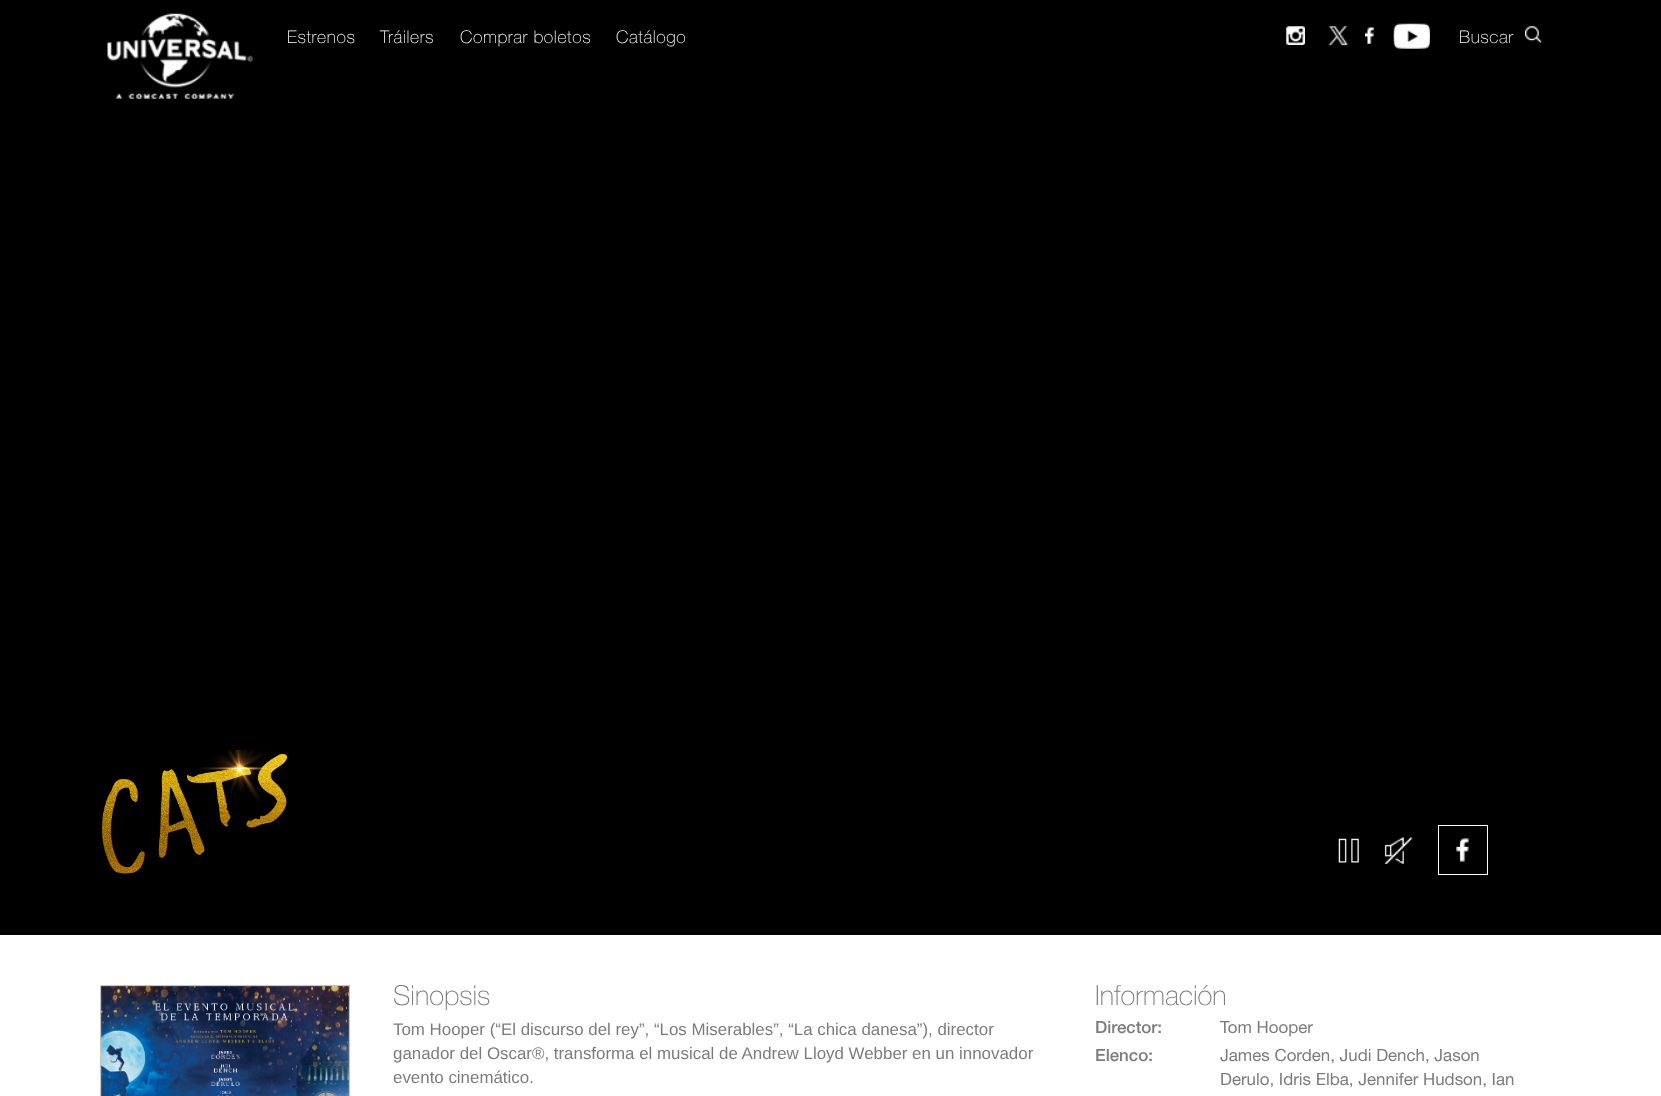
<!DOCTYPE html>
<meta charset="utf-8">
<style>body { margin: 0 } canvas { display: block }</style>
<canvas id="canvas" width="1661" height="1096"></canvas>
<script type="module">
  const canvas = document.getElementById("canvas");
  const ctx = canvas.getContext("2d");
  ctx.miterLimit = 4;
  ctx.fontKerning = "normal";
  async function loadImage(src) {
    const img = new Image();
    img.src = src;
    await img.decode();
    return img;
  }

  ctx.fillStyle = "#ffffff";
  ctx.fillRect(0, 0, 1661, 1096);
  ctx.fillStyle = "#000000";
  ctx.fillRect(0, 0, 1661, 935);
  ctx.drawImage(await loadImage("img1.png"), 107, 13, 146, 86);
  ctx.letterSpacing = "0.6px";
  ctx.font = "200 17.5px Helvetica Neue";
  ctx.fillStyle = "#ffffff";
  ctx.fillText("Estrenos", 287, 43);
  ctx.fillText("Tráilers", 380, 43);
  ctx.fillText("Comprar boletos", 460, 43);
  ctx.fillText("Catálogo", 616, 43);
  ctx.drawImage(await loadImage("img2.png"), 1286, 26, 19, 19);
  ctx.drawImage(await loadImage("img3.png"), 1328, 26, 20, 20);
  ctx.drawImage(await loadImage("img4.png"), 1365, 27, 9, 17);
  ctx.drawImage(await loadImage("img5.png"), 1393, 23, 37, 26);
  ctx.fillText("Buscar", 1459, 43);
  ctx.drawImage(await loadImage("img6.png"), 1525, 26, 17, 17);
  ctx.drawImage(await loadImage("img7.png"), 102, 750, 186, 124);
  ctx.drawImage(await loadImage("img8.png"), 1338, 838, 21, 25);
  ctx.drawImage(await loadImage("img9.png"), 1384, 837, 29, 27);
  ctx.strokeStyle = "#ffffff";
  ctx.strokeRect(1438.5, 825.5, 49, 49);
  ctx.drawImage(await loadImage("img10.png"), 1456, 838, 13, 24);
  ctx.strokeStyle = "#c2c2c2";
  ctx.strokeRect(100.5, 985.5, 249, 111);
  ctx.drawImage(await loadImage("img11.png"), 101, 986, 248, 110);
  ctx.drawImage(await loadImage("img12.png"), 101, 986, 248, 110);
  ctx.letterSpacing = "0px";
  ctx.font = "200 27.5px Helvetica Neue";
  ctx.fillStyle = "#7c7c7c";
  ctx.fillText("Sinopsis", 393, 1005);
  ctx.font = "16.9px Liberation Sans";
  ctx.fillText("Tom Hooper (“El discurso del rey”, “Los Miserables”, “La chica danesa”), director", 393, 1035);
  ctx.fillText("ganador del Oscar®, transforma el musical de Andrew Lloyd Webber en un innovador", 393, 1059);
  ctx.fillText("evento cinemático.", 393, 1083);
  ctx.font = "200 27.5px Helvetica Neue";
  ctx.fillText("Información", 1095, 1005);
  ctx.font = "500 16.9px Helvetica Neue";
  ctx.fillText("Director:", 1095, 1033);
  ctx.font = "16.9px Helvetica Neue";
  ctx.fillText("Tom Hooper", 1220, 1033);
  ctx.font = "500 16.9px Helvetica Neue";
  ctx.fillText("Elenco:", 1095, 1061);
  ctx.font = "16.9px Helvetica Neue";
  ctx.fillText("James Corden, Judi Dench, Jason", 1220, 1061);
  ctx.fillText("Derulo, Idris Elba, Jennifer Hudson, Ian", 1220, 1085);
</script>
